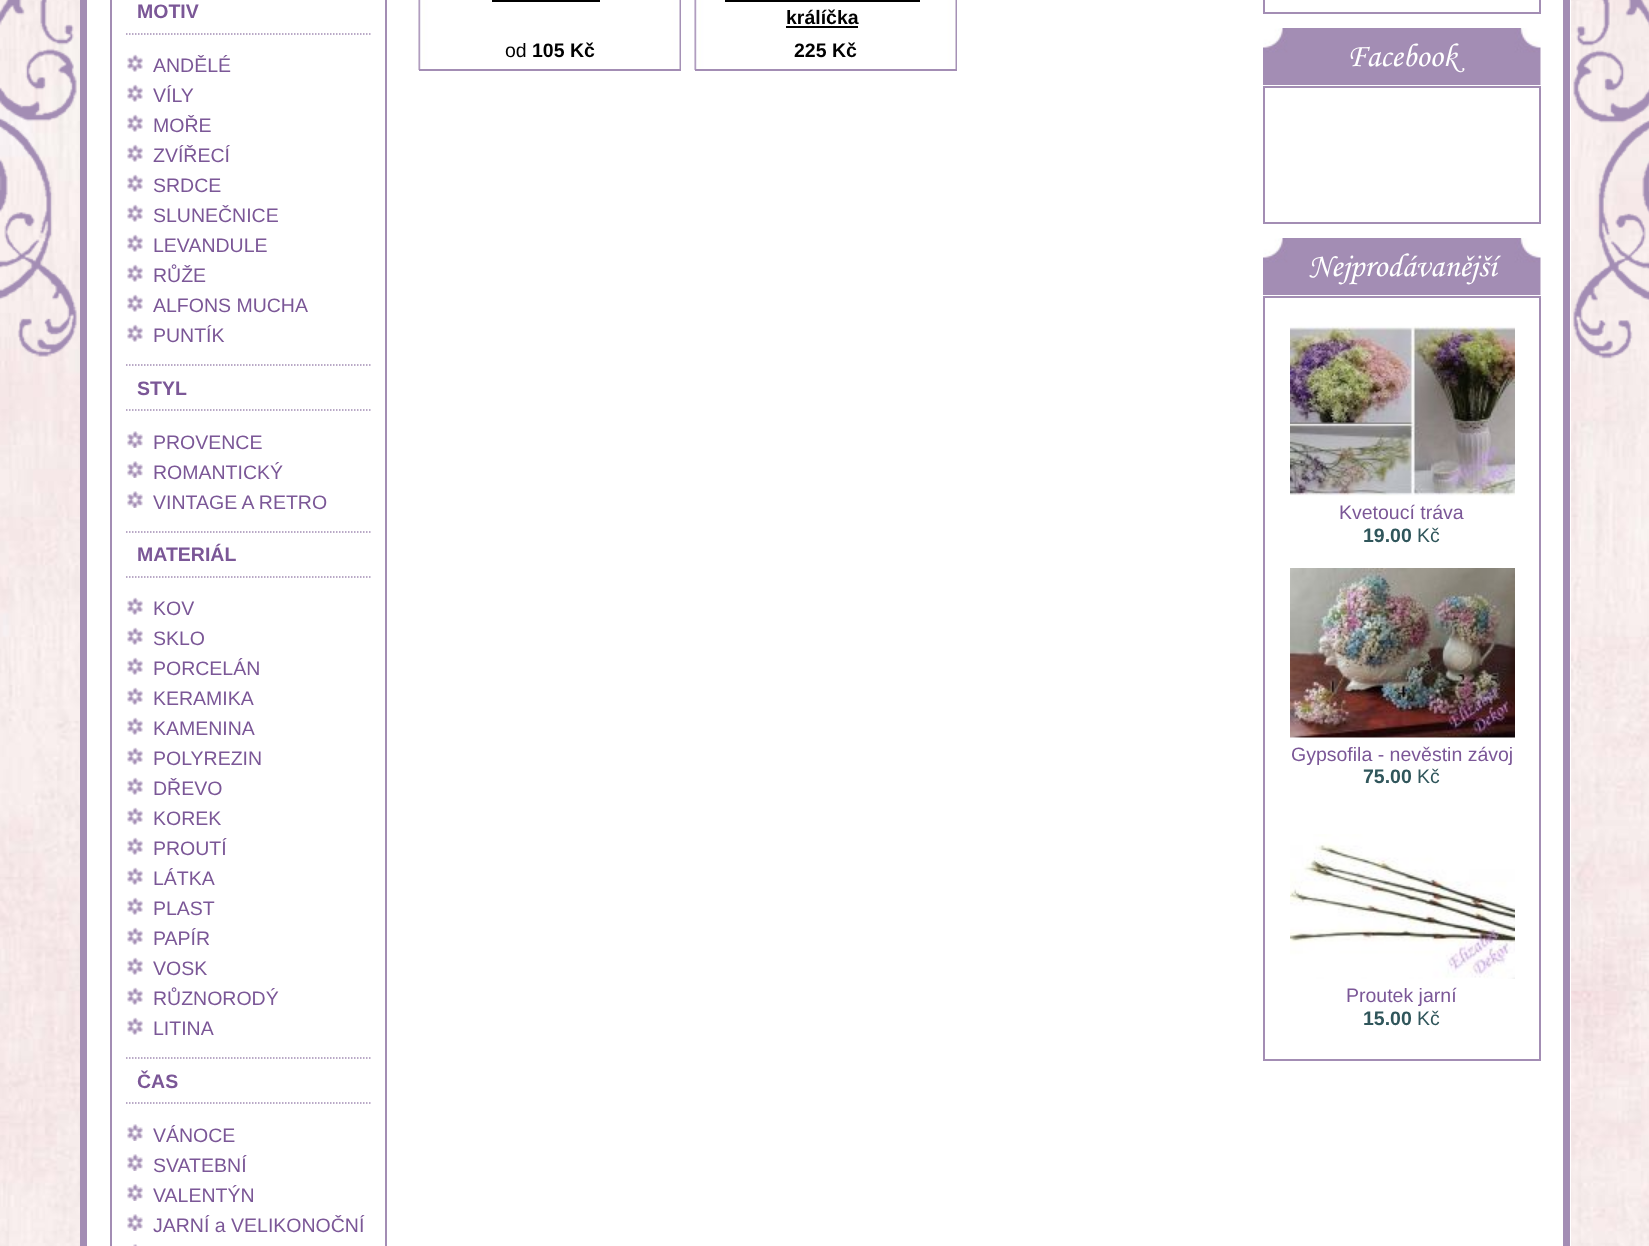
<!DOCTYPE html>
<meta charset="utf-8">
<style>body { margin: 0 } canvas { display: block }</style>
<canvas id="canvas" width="1649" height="1246"></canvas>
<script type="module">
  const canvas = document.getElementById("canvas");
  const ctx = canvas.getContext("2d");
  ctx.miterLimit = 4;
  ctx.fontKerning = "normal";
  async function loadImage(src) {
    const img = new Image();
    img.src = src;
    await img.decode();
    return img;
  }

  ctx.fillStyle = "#ffffff";
  ctx.fillRect(0, 0, 1649, 1246);
  ctx.drawImage(await loadImage("img1.png"), 0, 0, 1649, 1246);
  ctx.drawImage(await loadImage("img2.png"), 0, 0, 1649, 359);
  ctx.fillRect(87, 0, 1484, 1246);
  ctx.fillStyle = "#a38db4";
  ctx.beginPath();
  ctx.moveTo(80, -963);
  ctx.lineTo(1570, -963);
  ctx.lineTo(1570, 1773);
  ctx.bezierCurveTo(1570, 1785, 1560, 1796, 1548, 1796);
  ctx.lineTo(102, 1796);
  ctx.bezierCurveTo(90, 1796, 80, 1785, 80, 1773);
  ctx.closePath();
  ctx.moveTo(87, -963);
  ctx.lineTo(1563, -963);
  ctx.lineTo(1563, 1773);
  ctx.bezierCurveTo(1563, 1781, 1556, 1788, 1548, 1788);
  ctx.lineTo(102, 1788);
  ctx.bezierCurveTo(94, 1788, 87, 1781, 87, 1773);
  ctx.closePath();
  ctx.fill("evenodd");
  ctx.strokeStyle = "#a38db4";
  ctx.lineWidth = 2;
  ctx.strokeRect(111, -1, 275, 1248);
  ctx.beginPath();
  ctx.moveTo(126, 34);
  ctx.lineTo(370.5, 34);
  ctx.lineWidth = 1.5;
  ctx.setLineDash([1.5, 1.5]);
  ctx.stroke();
  ctx.font = "bold 19.5px Liberation Sans";
  ctx.fillStyle = "#7b5797";
  ctx.fillText("MOTIV", 137, 18);
  ctx.drawImage(await loadImage("img3.png"), 127, 54, 16, 18);
  ctx.font = "19.5px Liberation Sans";
  ctx.fillText("ANDĚLÉ", 153, 72);
  ctx.drawImage(await loadImage("img3.png"), 127, 84, 16, 18);
  ctx.fillText("VÍLY", 153, 102);
  ctx.drawImage(await loadImage("img3.png"), 127, 114, 16, 18);
  ctx.fillText("MOŘE", 153, 132);
  ctx.drawImage(await loadImage("img3.png"), 127, 144, 16, 18);
  ctx.fillText("ZVÍŘECÍ", 153, 162);
  ctx.drawImage(await loadImage("img3.png"), 127, 174, 16, 18);
  ctx.fillText("SRDCE", 153, 192);
  ctx.drawImage(await loadImage("img3.png"), 127, 204, 16, 18);
  ctx.fillText("SLUNEČNICE", 153, 222);
  ctx.drawImage(await loadImage("img3.png"), 127, 234, 16, 18);
  ctx.fillText("LEVANDULE", 153, 252);
  ctx.drawImage(await loadImage("img3.png"), 127, 264, 16, 18);
  ctx.fillText("RŮŽE", 153, 282);
  ctx.drawImage(await loadImage("img3.png"), 127, 294, 16, 18);
  ctx.fillText("ALFONS MUCHA", 153, 312);
  ctx.drawImage(await loadImage("img3.png"), 127, 324, 16, 18);
  ctx.fillText("PUNTÍK", 153, 342);
  ctx.beginPath();
  ctx.moveTo(126, 365);
  ctx.lineTo(370.5, 365);
  ctx.stroke();
  ctx.beginPath();
  ctx.moveTo(126, 410);
  ctx.lineTo(370.5, 410);
  ctx.stroke();
  ctx.font = "bold 19.5px Liberation Sans";
  ctx.fillText("STYL", 137, 395);
  ctx.drawImage(await loadImage("img4.png"), 127, 431, 16, 17);
  ctx.font = "19.5px Liberation Sans";
  ctx.fillText("PROVENCE", 153, 449);
  ctx.drawImage(await loadImage("img4.png"), 127, 461, 16, 17);
  ctx.fillText("ROMANTICKÝ", 153, 479);
  ctx.drawImage(await loadImage("img4.png"), 127, 491, 16, 17);
  ctx.fillText("VINTAGE A RETRO", 153, 509);
  ctx.beginPath();
  ctx.moveTo(126, 532);
  ctx.lineTo(370.5, 532);
  ctx.stroke();
  ctx.beginPath();
  ctx.moveTo(126, 577);
  ctx.lineTo(370.5, 577);
  ctx.stroke();
  ctx.font = "bold 19.5px Liberation Sans";
  ctx.fillText("MATERIÁL", 137, 561);
  ctx.drawImage(await loadImage("img3.png"), 127, 597, 16, 18);
  ctx.font = "19.5px Liberation Sans";
  ctx.fillText("KOV", 153, 615);
  ctx.drawImage(await loadImage("img3.png"), 127, 627, 16, 18);
  ctx.fillText("SKLO", 153, 645);
  ctx.drawImage(await loadImage("img3.png"), 127, 657, 16, 18);
  ctx.fillText("PORCELÁN", 153, 675);
  ctx.drawImage(await loadImage("img3.png"), 127, 687, 16, 18);
  ctx.fillText("KERAMIKA", 153, 705);
  ctx.drawImage(await loadImage("img3.png"), 127, 717, 16, 18);
  ctx.fillText("KAMENINA", 153, 735);
  ctx.drawImage(await loadImage("img3.png"), 127, 747, 16, 18);
  ctx.fillText("POLYREZIN", 153, 765);
  ctx.drawImage(await loadImage("img3.png"), 127, 777, 16, 18);
  ctx.fillText("DŘEVO", 153, 795);
  ctx.drawImage(await loadImage("img3.png"), 127, 807, 16, 18);
  ctx.fillText("KOREK", 153, 825);
  ctx.drawImage(await loadImage("img3.png"), 127, 837, 16, 18);
  ctx.fillText("PROUTÍ", 153, 855);
  ctx.drawImage(await loadImage("img3.png"), 127, 867, 16, 18);
  ctx.fillText("LÁTKA", 153, 885);
  ctx.drawImage(await loadImage("img3.png"), 127, 897, 16, 18);
  ctx.fillText("PLAST", 153, 915);
  ctx.drawImage(await loadImage("img3.png"), 127, 927, 16, 18);
  ctx.fillText("PAPÍR", 153, 945);
  ctx.drawImage(await loadImage("img3.png"), 127, 957, 16, 18);
  ctx.fillText("VOSK", 153, 975);
  ctx.drawImage(await loadImage("img3.png"), 127, 987, 16, 18);
  ctx.fillText("RŮZNORODÝ", 153, 1005);
  ctx.drawImage(await loadImage("img3.png"), 127, 1017, 16, 18);
  ctx.fillText("LITINA", 153, 1035);
  ctx.beginPath();
  ctx.moveTo(126, 1058);
  ctx.lineTo(370.5, 1058);
  ctx.stroke();
  ctx.beginPath();
  ctx.moveTo(126, 1103);
  ctx.lineTo(370.5, 1103);
  ctx.stroke();
  ctx.font = "bold 19.5px Liberation Sans";
  ctx.fillText("ČAS", 137, 1088);
  ctx.drawImage(await loadImage("img4.png"), 127, 1124, 16, 17);
  ctx.font = "19.5px Liberation Sans";
  ctx.fillText("VÁNOCE", 153, 1142);
  ctx.drawImage(await loadImage("img4.png"), 127, 1154, 16, 17);
  ctx.fillText("SVATEBNÍ", 153, 1172);
  ctx.drawImage(await loadImage("img4.png"), 127, 1184, 16, 17);
  ctx.fillText("VALENTÝN", 153, 1202);
  ctx.drawImage(await loadImage("img4.png"), 127, 1214, 16, 17);
  ctx.fillText("JARNÍ a VELIKONOČNÍ", 153, 1232);
  ctx.drawImage(await loadImage("img5.png"), 133, 1244, 5, 2);
  ctx.drawImage(await loadImage("img6.png"), 418, 0, 263, 70);
  ctx.fillStyle = "#a38db4";
  ctx.fillRect(419, 69, 262, 2);
  ctx.fillStyle = "#000000";
  ctx.fillRect(492, 0, 108, 2);
  ctx.fillText("od", 505, 57);
  ctx.font = "bold 19.5px Liberation Sans";
  ctx.fillText("105 Kč", 532, 57);
  ctx.drawImage(await loadImage("img6.png"), 694, 0, 263, 70);
  ctx.fillStyle = "#a38db4";
  ctx.fillRect(695, 69, 262, 2);
  ctx.fillStyle = "#000000";
  ctx.fillText("králíčka", 786, 24);
  ctx.fillRect(725, 0, 195, 2);
  ctx.fillRect(786, 26, 72, 2);
  ctx.fillText("225 Kč", 794, 57);
  ctx.lineWidth = 2;
  ctx.setLineDash([]);
  ctx.strokeRect(1264, -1, 276, 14);
  ctx.drawImage(await loadImage("img7.png"), 1263, 28, 278, 57);
  ctx.font = "italic 33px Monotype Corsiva";
  ctx.fillStyle = "#ffffff";
  ctx.fillText("Facebook", 1347, 66);
  ctx.strokeRect(1264, 87, 276, 136);
  ctx.drawImage(await loadImage("img7.png"), 1263, 238, 278, 57);
  ctx.fillText("Nejprodávanější", 1308, 276);
  ctx.strokeRect(1264, 297, 276, 763);
  ctx.drawImage(await loadImage("img8.png"), 1290, 326, 225, 170);
  ctx.font = "19.5px Liberation Sans";
  ctx.fillStyle = "#7b5797";
  ctx.fillText("Kvetoucí tráva", 1339, 519);
  ctx.font = "bold 19.5px Liberation Sans";
  ctx.fillStyle = "#30565b";
  ctx.fillText("19.00", 1363, 542);
  ctx.font = "19.5px Liberation Sans";
  ctx.fillText("Kč", 1417, 542);
  ctx.drawImage(await loadImage("img9.png"), 1290, 568, 225, 170);
  ctx.fillStyle = "#7b5797";
  ctx.fillText("Gypsofila - nevěstin závoj", 1291, 761);
  ctx.font = "bold 19.5px Liberation Sans";
  ctx.fillStyle = "#30565b";
  ctx.fillText("75.00", 1363, 783);
  ctx.font = "19.5px Liberation Sans";
  ctx.fillText("Kč", 1417, 783);
  ctx.drawImage(await loadImage("img10.png"), 1290, 834, 225, 145);
  ctx.fillStyle = "#7b5797";
  ctx.fillText("Proutek jarní", 1346, 1002);
  ctx.font = "bold 19.5px Liberation Sans";
  ctx.fillStyle = "#30565b";
  ctx.fillText("15.00", 1363, 1025);
  ctx.font = "19.5px Liberation Sans";
  ctx.fillText("Kč", 1417, 1025);
</script>
